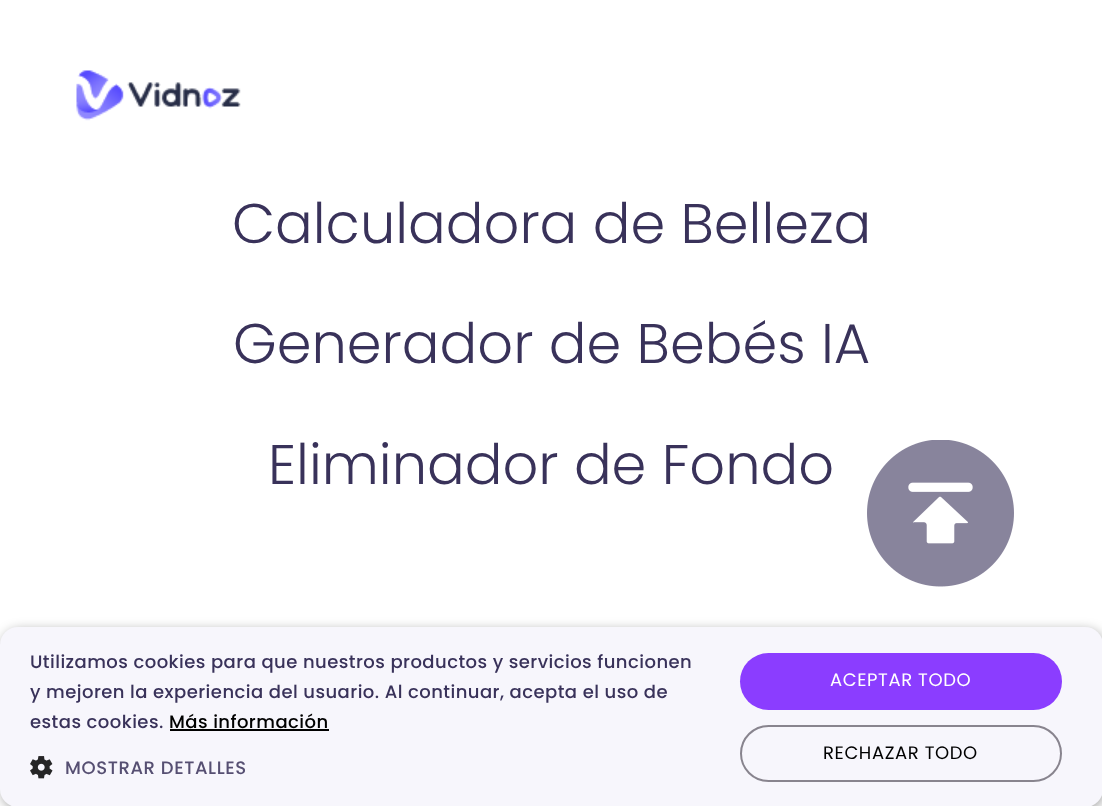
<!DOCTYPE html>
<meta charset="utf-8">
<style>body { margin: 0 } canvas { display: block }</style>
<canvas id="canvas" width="1102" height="806"></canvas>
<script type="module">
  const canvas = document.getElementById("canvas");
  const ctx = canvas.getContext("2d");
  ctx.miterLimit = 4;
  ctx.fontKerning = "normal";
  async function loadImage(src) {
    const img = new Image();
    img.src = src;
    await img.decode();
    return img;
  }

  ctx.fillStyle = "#ffffff";
  ctx.fillRect(0, 0, 1102, 806);
  ctx.drawImage(await loadImage("img1.png"), 76, 70, 165, 51);
  ctx.font = "300 55.9px Poppins";
  ctx.fillStyle = "#39325a";
  ctx.fillText("Calculadora de Belleza", 232, 243);
  ctx.fillText("Generador de Bebés IA", 233, 363);
  ctx.fillText("Eliminador de Fondo", 268, 484);
  ctx.drawImage(await loadImage("img2.png"), 867, 440, 147, 147);
  ctx.fillStyle = "rgba(0, 0, 0, 0.35)";
  ctx.filter = "blur(6px)";
  ctx.beginPath();
  ctx.roundRect(2, 630, 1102, 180, 18);
  ctx.fill();
  ctx.filter = "none";
  ctx.fillStyle = "#f7f6fc";
  ctx.beginPath();
  ctx.roundRect(0, 627, 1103, 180, 18);
  ctx.fill();
  ctx.letterSpacing = "0.45px";
  ctx.font = "500 18px Poppins";
  ctx.fillStyle = "#39325a";
  ctx.fillText("Utilizamos cookies para que nuestros productos y servicios funcionen", 30, 668);
  ctx.fillText("y mejoren la experiencia del usuario. Al continuar, acepta el uso de", 30, 698);
  ctx.fillText("estas cookies.", 30, 728);
  ctx.fillStyle = "#000000";
  ctx.fillText("Más información", 169, 728);
  ctx.fillRect(170, 729, 159, 2);
  ctx.drawImage(await loadImage("img3.png"), 30, 756, 23, 23);
  ctx.letterSpacing = "0.6px";
  ctx.fillStyle = "#564f72";
  ctx.fillText("MOSTRAR DETALLES", 65, 774);
  ctx.fillStyle = "#8b3dff";
  ctx.beginPath();
  ctx.roundRect(740, 653, 322, 57, 28.5);
  ctx.fill();
  ctx.font = "18px Poppins";
  ctx.fillStyle = "#ffffff";
  ctx.fillText("ACEPTAR TODO", 830, 686);
  ctx.beginPath();
  ctx.roundRect(741, 726, 320, 55, 27.5);
  ctx.strokeStyle = "#88848e";
  ctx.lineWidth = 2;
  ctx.stroke();
  ctx.fillStyle = "#000000";
  ctx.fillText("RECHAZAR TODO", 823, 759);
</script>
